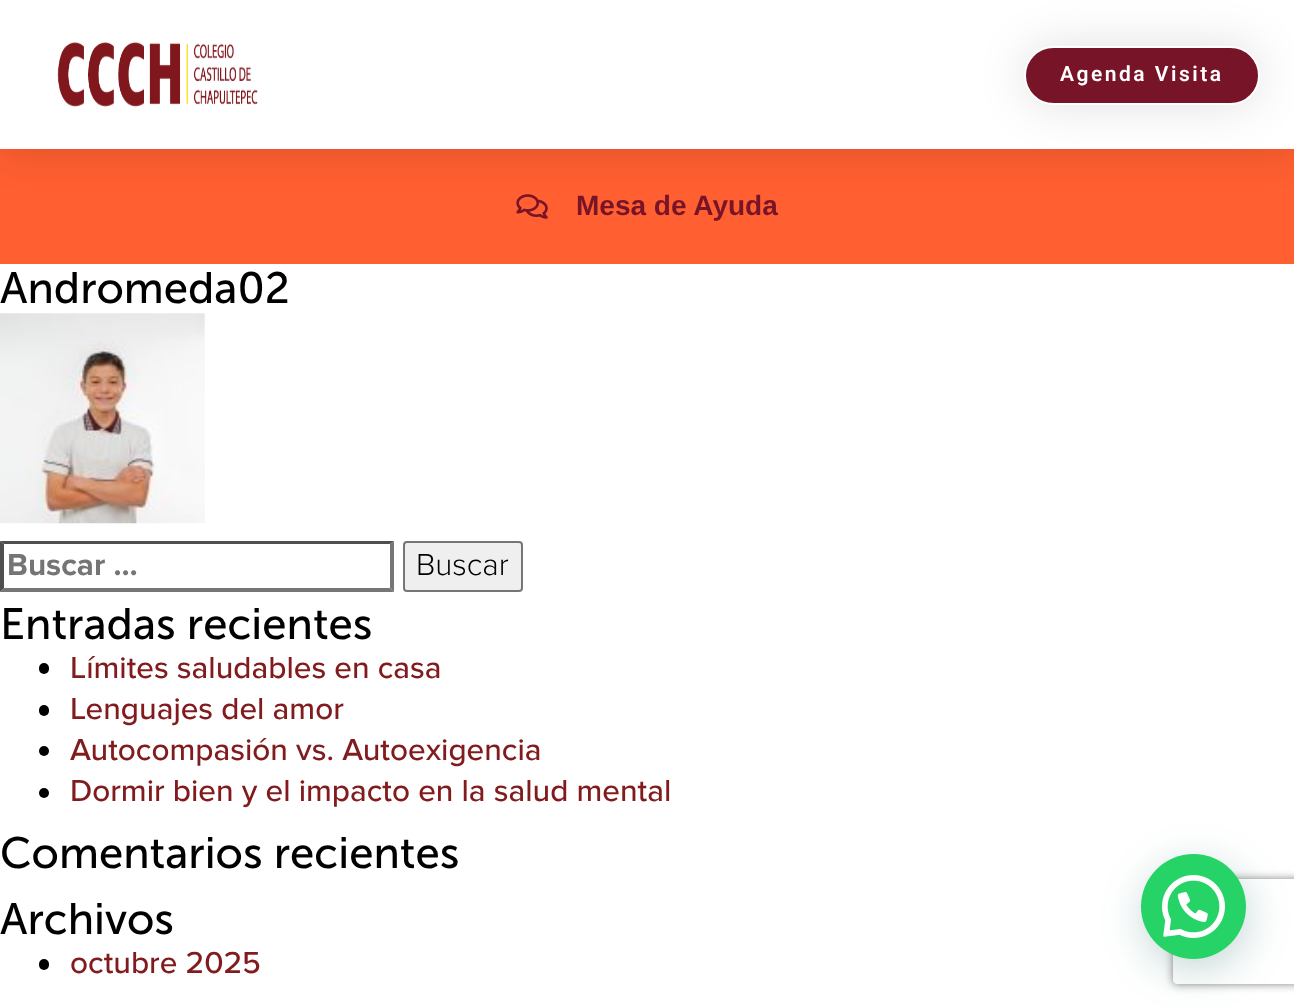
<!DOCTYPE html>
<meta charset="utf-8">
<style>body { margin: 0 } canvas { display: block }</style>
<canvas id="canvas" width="1294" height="1008"></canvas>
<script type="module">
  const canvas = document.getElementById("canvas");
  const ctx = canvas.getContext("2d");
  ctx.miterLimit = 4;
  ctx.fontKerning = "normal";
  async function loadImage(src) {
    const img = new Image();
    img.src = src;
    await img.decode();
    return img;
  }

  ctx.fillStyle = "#ffffff";
  ctx.fillRect(0, 0, 1294, 1008);
  ctx.fillStyle = "#ff5f31";
  ctx.fillRect(0, 149, 1294, 115);
  ctx.drawImage(await loadImage("img2.png"), 516, 194, 32, 25);
  ctx.fillStyle = "rgba(0, 0, 0, 0.15)";
  ctx.filter = "blur(21px)";
  ctx.beginPath();
  ctx.rect(0, 0, 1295, 149);
  ctx.fill();
  ctx.filter = "none";
  ctx.fillStyle = "#ffffff";
  ctx.fillRect(0, 0, 1294, 149);
  ctx.drawImage(await loadImage("img1.png"), 57, 42, 201, 65);
  ctx.fillStyle = "rgba(0, 0, 0, 0.12)";
  ctx.filter = "blur(23.5px)";
  ctx.beginPath();
  ctx.roundRect(1024, 46, 236, 59, 29.5);
  ctx.fill();
  ctx.filter = "none";
  ctx.fillStyle = "#781428";
  ctx.beginPath();
  ctx.roundRect(1025, 47, 234, 57, 28.5);
  ctx.fill();
  ctx.strokeStyle = "#ffffff";
  ctx.lineWidth = 2;
  ctx.stroke();
  ctx.letterSpacing = "2.5px";
  ctx.font = "600 21px Roboto";
  ctx.fillStyle = "#ffffff";
  ctx.fillText("Agenda Visita", 1060, 81);
  ctx.letterSpacing = "0px";
  ctx.font = "bold 28px Liberation Sans";
  ctx.fillStyle = "#781428";
  ctx.fillText("Mesa de Ayuda", 576, 215);
  ctx.font = "43.75px 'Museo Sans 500'";
  ctx.fillStyle = "#000000";
  ctx.fillText("Andromeda02", 0, 303);
  ctx.drawImage(await loadImage("img3.png"), 0, 313, 205, 211);
  ctx.fillStyle = "#4f4f4f";
  ctx.beginPath();
  ctx.moveTo(0, 541);
  ctx.lineTo(394, 541);
  ctx.lineTo(390, 544);
  ctx.lineTo(4, 544);
  ctx.closePath();
  ctx.fill();
  ctx.fillStyle = "#767676";
  ctx.beginPath();
  ctx.moveTo(394, 541);
  ctx.lineTo(394, 592);
  ctx.lineTo(390, 588);
  ctx.lineTo(390, 544);
  ctx.closePath();
  ctx.fill();
  ctx.beginPath();
  ctx.moveTo(394, 592);
  ctx.lineTo(0, 592);
  ctx.lineTo(4, 588);
  ctx.lineTo(390, 588);
  ctx.closePath();
  ctx.fill();
  ctx.fillStyle = "#4f4f4f";
  ctx.beginPath();
  ctx.moveTo(0, 592);
  ctx.lineTo(0, 541);
  ctx.lineTo(4, 544);
  ctx.lineTo(4, 588);
  ctx.closePath();
  ctx.fill();
  ctx.font = "bold 31.5px Proxima Nova";
  ctx.fillStyle = "#757575";
  ctx.fillText("Buscar …", 7, 575);
  ctx.fillStyle = "#efefef";
  ctx.beginPath();
  ctx.roundRect(404, 542, 118, 49, 3);
  ctx.fill();
  ctx.strokeStyle = "#767676";
  ctx.stroke();
  ctx.font = "300 31.5px Proxima Nova";
  ctx.fillStyle = "#000000";
  ctx.fillText("Buscar", 416, 575);
  ctx.font = "43.75px 'Museo Sans 500'";
  ctx.fillText("Entradas recientes", 0, 639);
  ctx.beginPath();
  ctx.roundRect(39, 663, 10, 11, 5);
  ctx.fill();
  ctx.font = "500 31.5px Proxima Nova";
  ctx.fillStyle = "#811b1d";
  ctx.fillText("Límites saludables en casa", 70, 678);
  ctx.fillStyle = "#000000";
  ctx.beginPath();
  ctx.roundRect(39, 705, 10, 11, 5);
  ctx.fill();
  ctx.fillStyle = "#811b1d";
  ctx.fillText("Lenguajes del amor", 70, 719);
  ctx.fillStyle = "#000000";
  ctx.beginPath();
  ctx.arc(44, 751, 5, 0, Math.PI * 2);
  ctx.fill();
  ctx.fillStyle = "#811b1d";
  ctx.fillText("Autocompasión vs. Autoexigencia", 70, 760);
  ctx.fillStyle = "#000000";
  ctx.beginPath();
  ctx.arc(44, 793, 5, 0, Math.PI * 2);
  ctx.fill();
  ctx.fillStyle = "#811b1d";
  ctx.fillText("Dormir bien y el impacto en la salud mental", 70, 801);
  ctx.font = "43.75px 'Museo Sans 500'";
  ctx.fillStyle = "#000000";
  ctx.fillText("Comentarios recientes", 0, 868);
  ctx.fillText("Archivos", 0, 934);
  ctx.beginPath();
  ctx.roundRect(39, 959, 10, 11, 5);
  ctx.fill();
  ctx.font = "500 31.5px Proxima Nova";
  ctx.fillStyle = "#811b1d";
  ctx.fillText("octubre 2025", 70, 973);
  ctx.fillStyle = "rgba(7, 94, 84, 0.24)";
  ctx.filter = "blur(21px)";
  ctx.beginPath();
  ctx.roundRect(1143, 865, 105, 105, 52.5);
  ctx.fill();
  ctx.filter = "none";
  ctx.save();
  ctx.beginPath();
  ctx.moveTo(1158, 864);
  ctx.lineTo(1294, 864);
  ctx.lineTo(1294, 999);
  ctx.lineTo(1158, 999);
  ctx.closePath();
  ctx.moveTo(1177, 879);
  ctx.lineTo(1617, 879);
  ctx.bezierCurveTo(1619, 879, 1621, 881, 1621, 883);
  ctx.lineTo(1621, 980);
  ctx.bezierCurveTo(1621, 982, 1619, 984, 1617, 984);
  ctx.lineTo(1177, 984);
  ctx.bezierCurveTo(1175, 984, 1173, 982, 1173, 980);
  ctx.lineTo(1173, 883);
  ctx.bezierCurveTo(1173, 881, 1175, 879, 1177, 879);
  ctx.closePath();
  ctx.clip("evenodd");
  ctx.fillStyle = "#808080";
  ctx.filter = "blur(4.5px)";
  ctx.beginPath();
  ctx.roundRect(1173, 879, 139, 105, 4);
  ctx.fill();
  ctx.filter = "none";
  ctx.restore();
  ctx.fillStyle = "#25d366";
  ctx.beginPath();
  ctx.arc(1193.5, 906.5, 52.5, 0, Math.PI * 2);
  ctx.fill();
  ctx.drawImage(await loadImage("img4.png"), 1162, 875, 63, 63);
</script>
